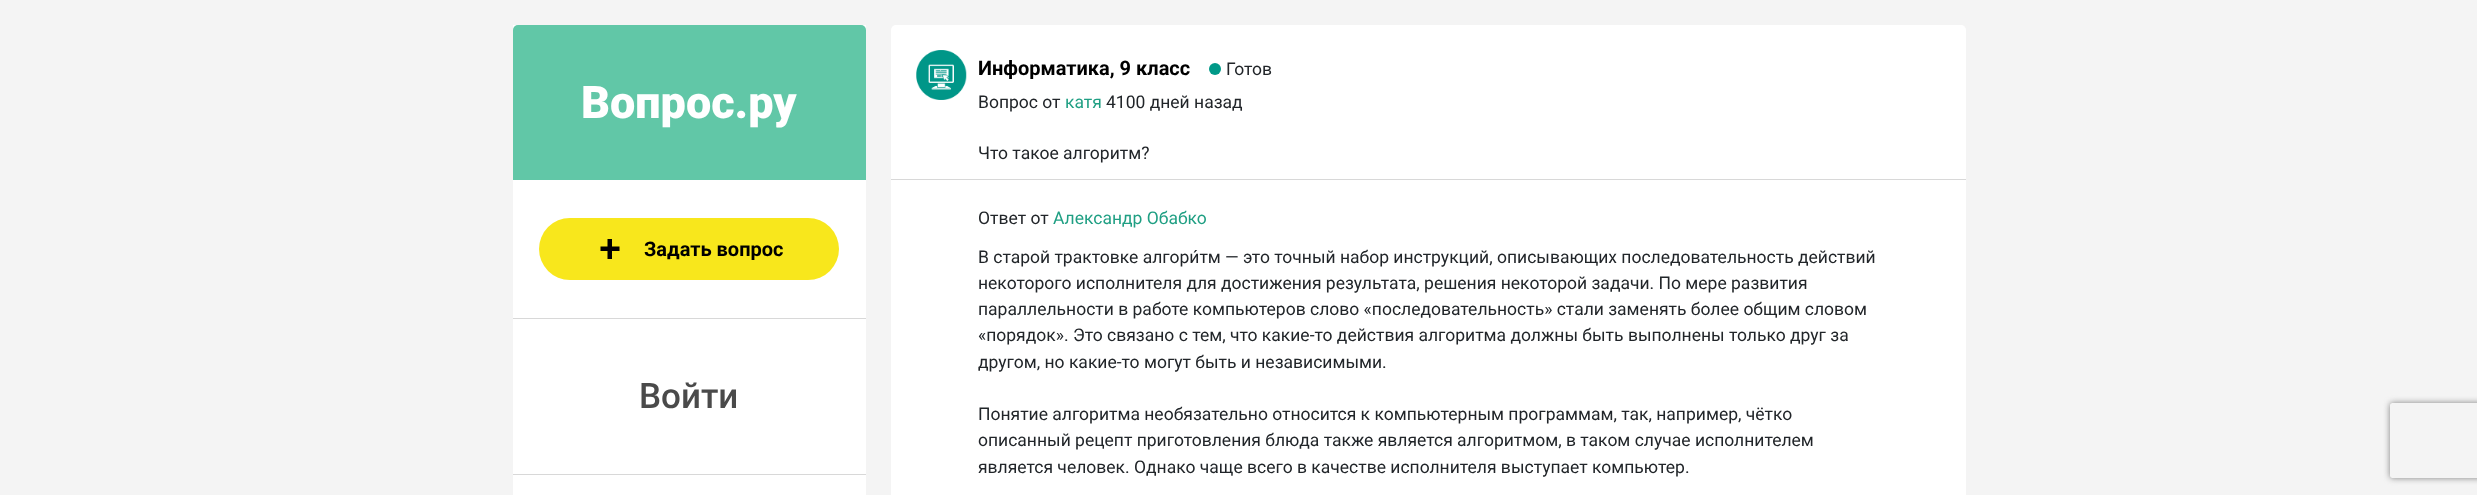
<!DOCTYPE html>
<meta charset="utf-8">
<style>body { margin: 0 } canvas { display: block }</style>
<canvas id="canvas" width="2477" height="495"></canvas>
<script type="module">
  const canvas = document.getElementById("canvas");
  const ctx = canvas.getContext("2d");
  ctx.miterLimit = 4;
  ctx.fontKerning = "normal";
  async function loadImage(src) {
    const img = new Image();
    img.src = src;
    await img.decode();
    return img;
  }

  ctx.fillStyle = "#f4f4f4";
  ctx.fillRect(0, 0, 2477, 495);
  ctx.fillStyle = "#ffffff";
  ctx.fillRect(513, 25, 353, 470);
  ctx.fillStyle = "#61c7a7";
  ctx.beginPath();
  ctx.roundRect(513, 25, 353, 155, [5, 5, 0, 0]);
  ctx.fill();
  ctx.font = "900 45px Roboto";
  ctx.fillStyle = "#ffffff";
  ctx.fillText("Вопрос.ру", 581, 118);
  ctx.fillStyle = "#f8e71c";
  ctx.beginPath();
  ctx.roundRect(539, 218, 300, 62, 31);
  ctx.fill();
  ctx.fillStyle = "#000000";
  ctx.beginPath();
  ctx.moveTo(612, 246.5);
  ctx.lineTo(619.5, 246.5);
  ctx.lineTo(619.5, 251);
  ctx.lineTo(612, 251);
  ctx.lineTo(612, 259);
  ctx.lineTo(607.5, 259);
  ctx.lineTo(607.5, 251);
  ctx.lineTo(600.5, 251);
  ctx.lineTo(600.5, 246.5);
  ctx.lineTo(607.5, 246.5);
  ctx.lineTo(607.5, 239);
  ctx.lineTo(612, 239);
  ctx.closePath();
  ctx.fill("evenodd");
  ctx.font = "bold 20px Roboto";
  ctx.fillText("Задать вопрос", 644, 256);
  ctx.fillStyle = "#d8d8d8";
  ctx.fillRect(513, 318, 353, 1);
  ctx.fillRect(513, 474, 353, 1);
  ctx.font = "500 35px Roboto";
  ctx.fillStyle = "#4a4a4a";
  ctx.fillText("Войти", 639, 408);
  ctx.fillStyle = "#ffffff";
  ctx.beginPath();
  ctx.roundRect(891, 25, 1075, 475, 5);
  ctx.fill();
  ctx.fillStyle = "#d8d8d8";
  ctx.fillRect(891, 179, 1075, 1);
  ctx.drawImage(await loadImage("img1.png"), 916, 50, 51, 50);
  ctx.font = "bold 20px Roboto";
  ctx.fillStyle = "#000000";
  ctx.fillText("Информатика, 9 класс", 978, 75);
  ctx.fillStyle = "#009988";
  ctx.beginPath();
  ctx.arc(1215, 69, 6, 0, Math.PI * 2);
  ctx.fill();
  ctx.font = "17.5px Roboto";
  ctx.fillStyle = "#212529";
  ctx.fillText("Готов", 1226, 75);
  ctx.fillText("Вопрос от", 978, 108);
  ctx.fillStyle = "#1f9f83";
  ctx.fillText("катя", 1065, 108);
  ctx.fillStyle = "#212529";
  ctx.fillText("4100 дней назад", 1106, 108);
  ctx.fillText("Что такое алгоритм?", 978, 159);
  ctx.fillText("Ответ от", 978, 224);
  ctx.fillStyle = "#1f9f83";
  ctx.fillText("Александр Обабко", 1053, 224);
  ctx.fillStyle = "#212529";
  ctx.fillText("В старой трактовке алгори́тм — это точный набор инструкций, описывающих последовательность действий", 978, 263);
  ctx.fillText("некоторого исполнителя для достижения результата, решения некоторой задачи. По мере развития", 978, 289);
  ctx.fillText("параллельности в работе компьютеров слово «последовательность» стали заменять более общим словом", 978, 315);
  ctx.fillText("«порядок». Это связано с тем, что какие-то действия алгоритма должны быть выполнены только друг за", 978, 341);
  ctx.fillText("другом, но какие-то могут быть и независимыми.", 978, 368);
  ctx.fillText("Понятие алгоритма необязательно относится к компьютерным программам, так, например, чётко", 978, 420);
  ctx.fillText("описанный рецепт приготовления блюда также является алгоритмом, в таком случае исполнителем", 978, 446);
  ctx.fillText("является человек. Однако чаще всего в качестве исполнителя выступает компьютер.", 978, 473);
  ctx.save();
  ctx.beginPath();
  ctx.moveTo(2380, 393);
  ctx.lineTo(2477, 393);
  ctx.lineTo(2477, 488);
  ctx.lineTo(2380, 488);
  ctx.closePath();
  ctx.moveTo(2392.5, 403);
  ctx.lineTo(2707.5, 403);
  ctx.bezierCurveTo(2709, 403, 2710, 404, 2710, 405.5);
  ctx.lineTo(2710, 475.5);
  ctx.bezierCurveTo(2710, 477, 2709, 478, 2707.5, 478);
  ctx.lineTo(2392.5, 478);
  ctx.bezierCurveTo(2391, 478, 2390, 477, 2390, 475.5);
  ctx.lineTo(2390, 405.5);
  ctx.bezierCurveTo(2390, 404, 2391, 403, 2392.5, 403);
  ctx.closePath();
  ctx.clip("evenodd");
  ctx.fillStyle = "#808080";
  ctx.filter = "blur(3px)";
  ctx.beginPath();
  ctx.roundRect(2390, 403, 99, 75, 2.5);
  ctx.fill();
  ctx.filter = "none";
  ctx.restore();
</script>
